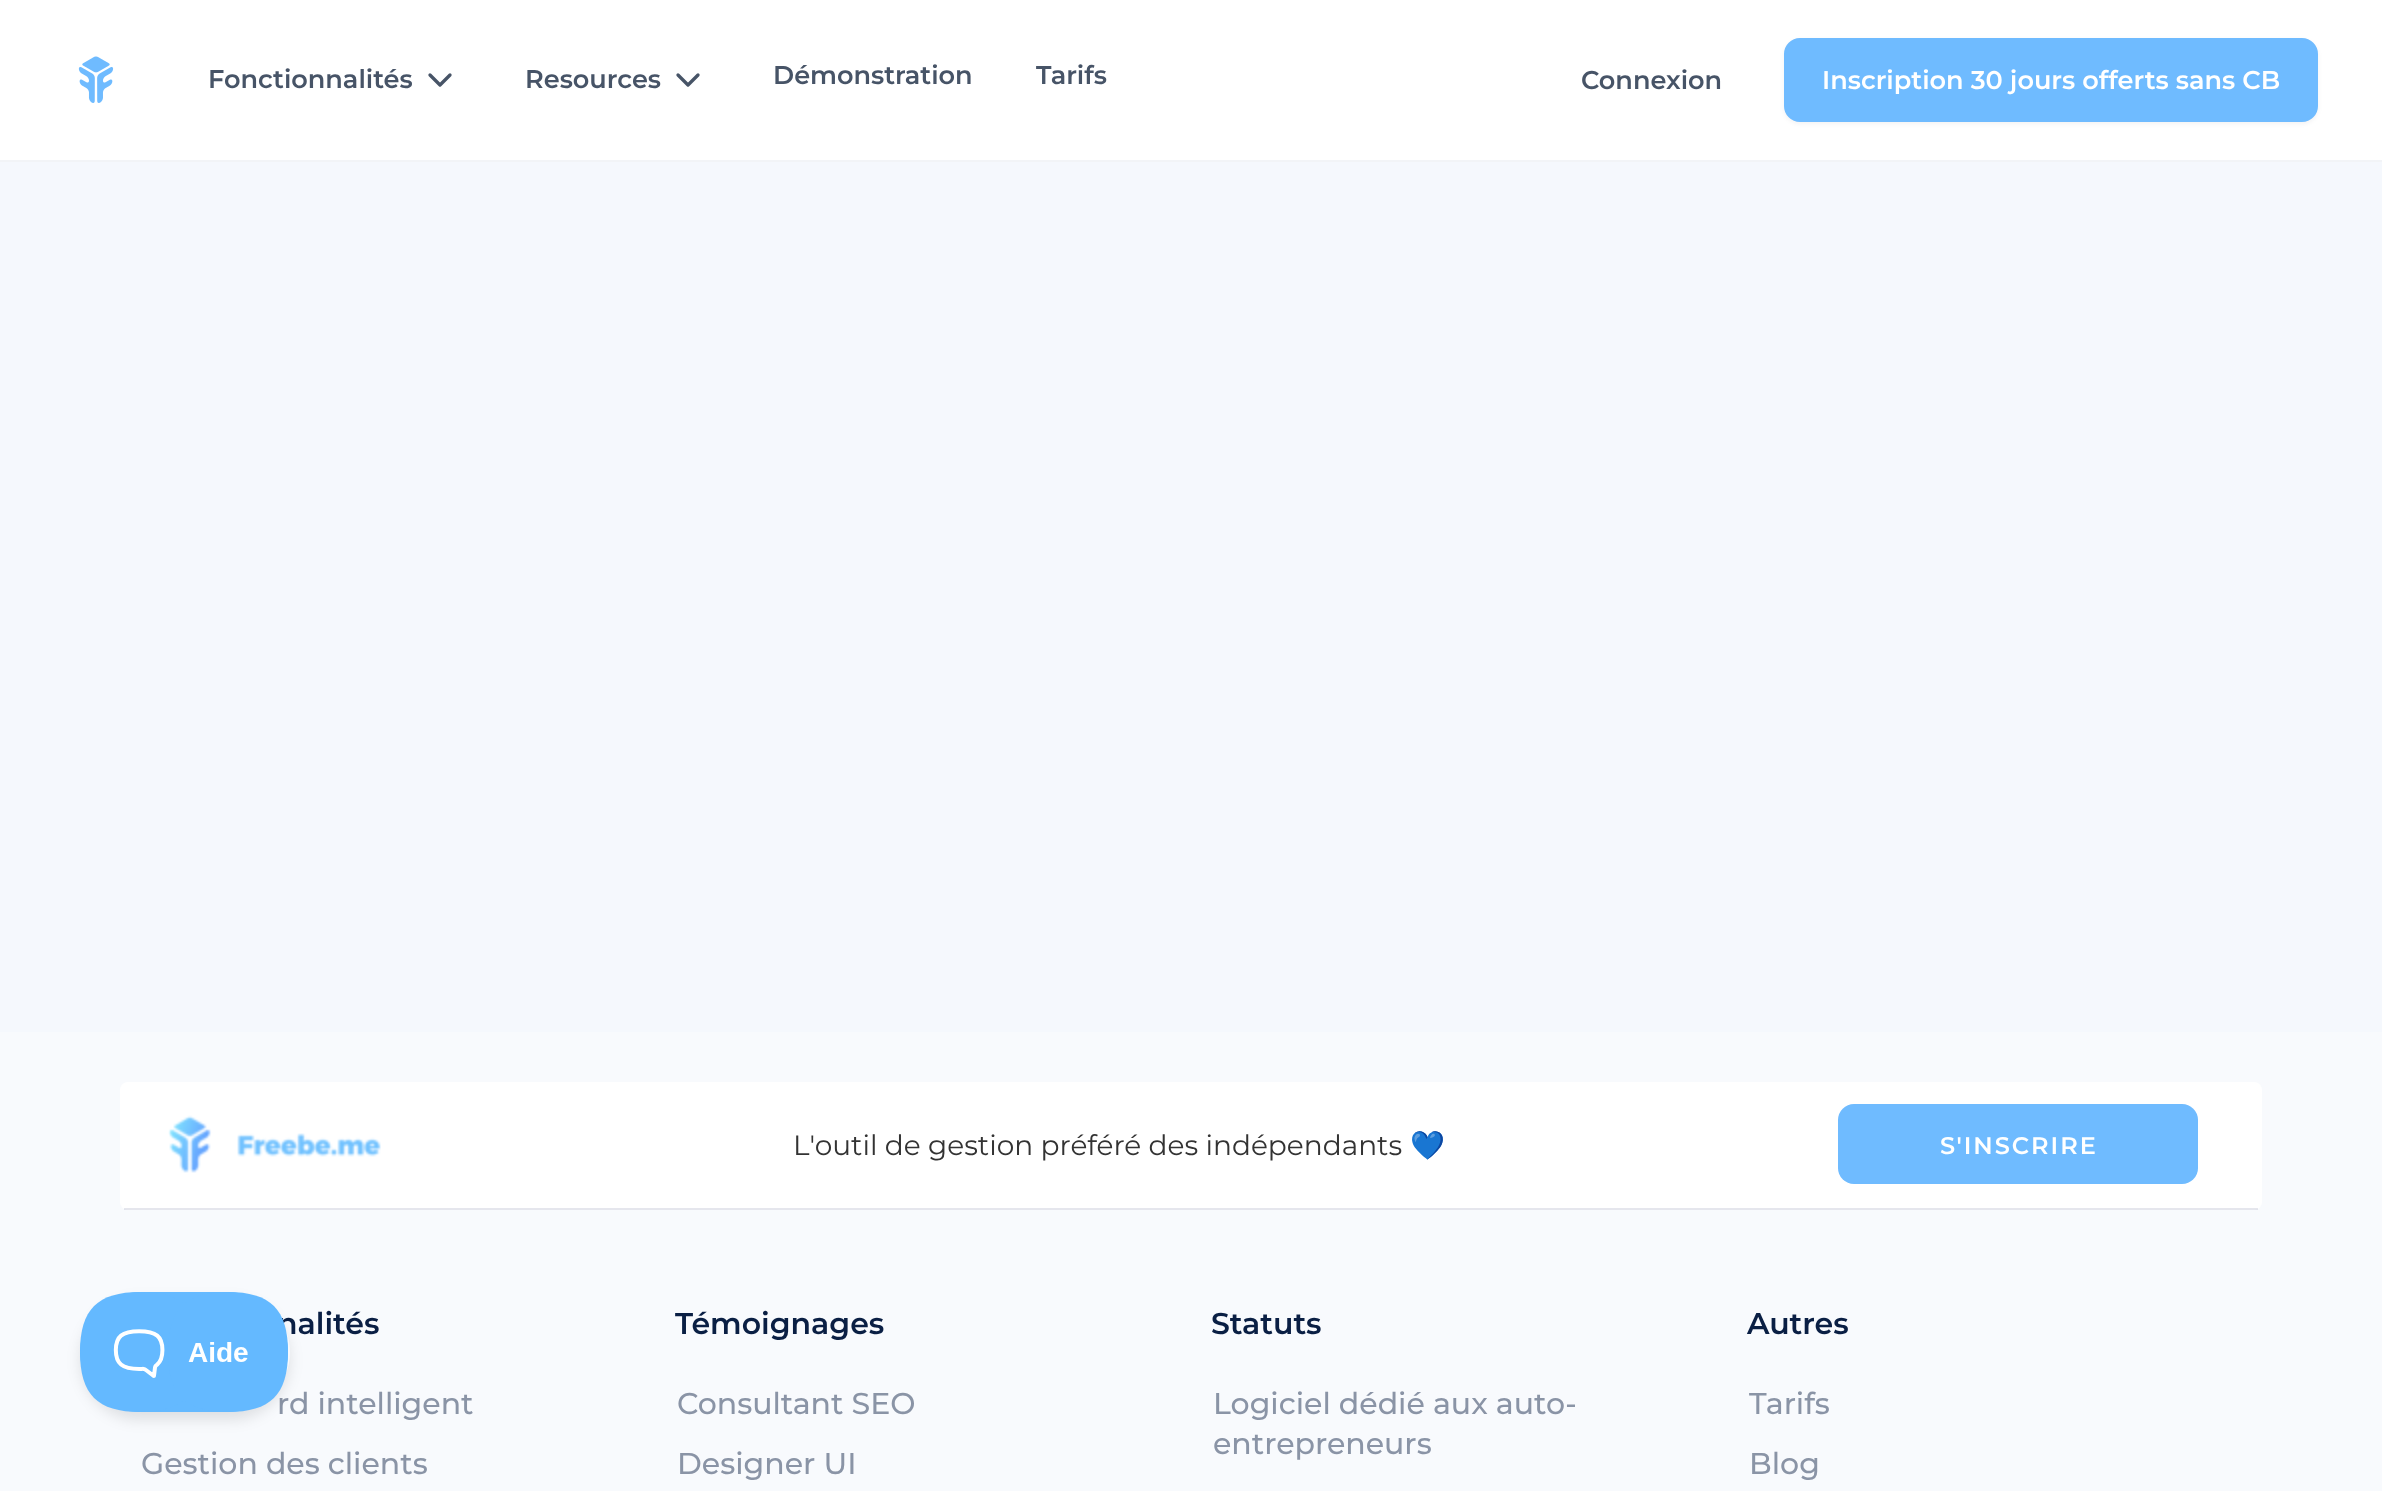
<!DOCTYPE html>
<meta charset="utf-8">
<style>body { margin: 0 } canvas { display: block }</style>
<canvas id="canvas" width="2382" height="1491"></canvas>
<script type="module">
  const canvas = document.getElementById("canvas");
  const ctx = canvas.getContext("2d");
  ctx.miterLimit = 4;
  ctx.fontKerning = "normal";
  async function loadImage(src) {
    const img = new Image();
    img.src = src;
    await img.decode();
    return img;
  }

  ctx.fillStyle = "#f5f8fd";
  ctx.fillRect(0, 0, 2382, 1491);
  ctx.fillStyle = "#ffffff";
  ctx.fillRect(0, 0, 2382, 160);
  ctx.fillStyle = "#f2f4f7";
  ctx.fillRect(0, 160, 2382, 2);
  ctx.drawImage(await loadImage("img1.png"), 78, 56, 36, 47);
  ctx.font = "600 25.6px Montserrat";
  ctx.fillStyle = "#475467";
  ctx.fillText("Fonctionnalités", 208, 88);
  ctx.beginPath();
  ctx.moveTo(430, 75);
  ctx.lineTo(440, 85);
  ctx.lineTo(450, 75);
  ctx.strokeStyle = "#475467";
  ctx.lineWidth = 3.3;
  ctx.lineCap = "round";
  ctx.lineJoin = "round";
  ctx.stroke();
  ctx.fillText("Resources", 525, 88);
  ctx.beginPath();
  ctx.moveTo(678, 75);
  ctx.lineTo(688, 85);
  ctx.lineTo(698, 75);
  ctx.stroke();
  ctx.fillText("Démonstration", 773, 84);
  ctx.fillText("Tarifs", 1036, 84);
  ctx.fillText("Connexion", 1581, 89);
  ctx.fillStyle = "rgba(16, 24, 40, 0.05)";
  ctx.filter = "blur(2px)";
  ctx.beginPath();
  ctx.roundRect(1784, 40, 534, 84, 16);
  ctx.fill();
  ctx.filter = "none";
  ctx.fillStyle = "#6fbbff";
  ctx.beginPath();
  ctx.roundRect(1785, 39, 532, 82, 15);
  ctx.fill();
  ctx.strokeStyle = "#6fbbff";
  ctx.lineWidth = 2;
  ctx.lineJoin = "miter";
  ctx.stroke();
  ctx.fillStyle = "#ffffff";
  ctx.fillText("Inscription 30 jours offerts sans CB", 1822, 89);
  ctx.fillStyle = "#f8fafd";
  ctx.fillRect(0, 1032, 2382, 459);
  ctx.fillStyle = "#ffffff";
  ctx.beginPath();
  ctx.roundRect(120, 1082, 2142, 128, 8);
  ctx.fill();
  ctx.fillStyle = "rgba(155, 158, 184, 0.26)";
  ctx.fillRect(124, 1208, 2134, 2);
  ctx.drawImage(await loadImage("img2.png"), 168, 1115, 213, 58);
  ctx.font = "28px Montserrat";
  ctx.fillStyle = "#333333";
  ctx.fillText("L'outil de gestion préféré des indépendants", 793, 1155);
  ctx.font = "28px Noto Color Emoji";
  ctx.fillText("💙", 1410, 1155);
  ctx.fillStyle = "#6fbbff";
  ctx.beginPath();
  ctx.roundRect(1838, 1104, 360, 80, 16);
  ctx.fill();
  ctx.letterSpacing = "2px";
  ctx.font = "600 24px Montserrat";
  ctx.fillStyle = "#ffffff";
  ctx.fillText("S'INSCRIRE", 1940, 1154);
  ctx.letterSpacing = "0px";
  ctx.font = "600 30px Montserrat";
  ctx.fillStyle = "#0a1f44";
  ctx.fillText("nalités", 277, 1334);
  ctx.font = "500 30px Montserrat";
  ctx.fillStyle = "#8a94a6";
  ctx.fillText("rd intelligent", 277, 1414);
  ctx.fillText("Gestion des clients", 141, 1474);
  ctx.font = "600 30px Montserrat";
  ctx.fillStyle = "#0a1f44";
  ctx.fillText("Témoignages", 675, 1334);
  ctx.font = "500 30px Montserrat";
  ctx.fillStyle = "#8a94a6";
  ctx.fillText("Consultant SEO", 677, 1414);
  ctx.fillText("Designer UI", 677, 1474);
  ctx.font = "600 30px Montserrat";
  ctx.fillStyle = "#0a1f44";
  ctx.fillText("Statuts", 1211, 1334);
  ctx.font = "500 30px Montserrat";
  ctx.fillStyle = "#8a94a6";
  ctx.fillText("Logiciel dédié aux auto-", 1213, 1414);
  ctx.fillText("entrepreneurs", 1213, 1454);
  ctx.font = "600 30px Montserrat";
  ctx.fillStyle = "#0a1f44";
  ctx.fillText("Autres", 1747, 1334);
  ctx.font = "500 30px Montserrat";
  ctx.fillStyle = "#8a94a6";
  ctx.fillText("Tarifs", 1749, 1414);
  ctx.fillText("Blog", 1749, 1474);
  ctx.save();
  ctx.beginPath();
  ctx.moveTo(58, 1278);
  ctx.lineTo(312, 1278);
  ctx.lineTo(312, 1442);
  ctx.lineTo(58, 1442);
  ctx.closePath();
  ctx.moveTo(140, 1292);
  ctx.lineTo(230, 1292);
  ctx.bezierCurveTo(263, 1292, 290, 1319, 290, 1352);
  ctx.bezierCurveTo(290, 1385, 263, 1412, 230, 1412);
  ctx.lineTo(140, 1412);
  ctx.bezierCurveTo(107, 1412, 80, 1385, 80, 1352);
  ctx.bezierCurveTo(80, 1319, 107, 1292, 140, 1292);
  ctx.closePath();
  ctx.clip("evenodd");
  ctx.fillStyle = "rgba(0, 0, 0, 0.1)";
  ctx.filter = "blur(7px)";
  ctx.beginPath();
  ctx.roundRect(80, 1300, 210, 120, 60);
  ctx.fill();
  ctx.filter = "none";
  ctx.restore();
  ctx.drawImage(await loadImage("img3.png"), 80, 1292, 208, 120);
</script>
